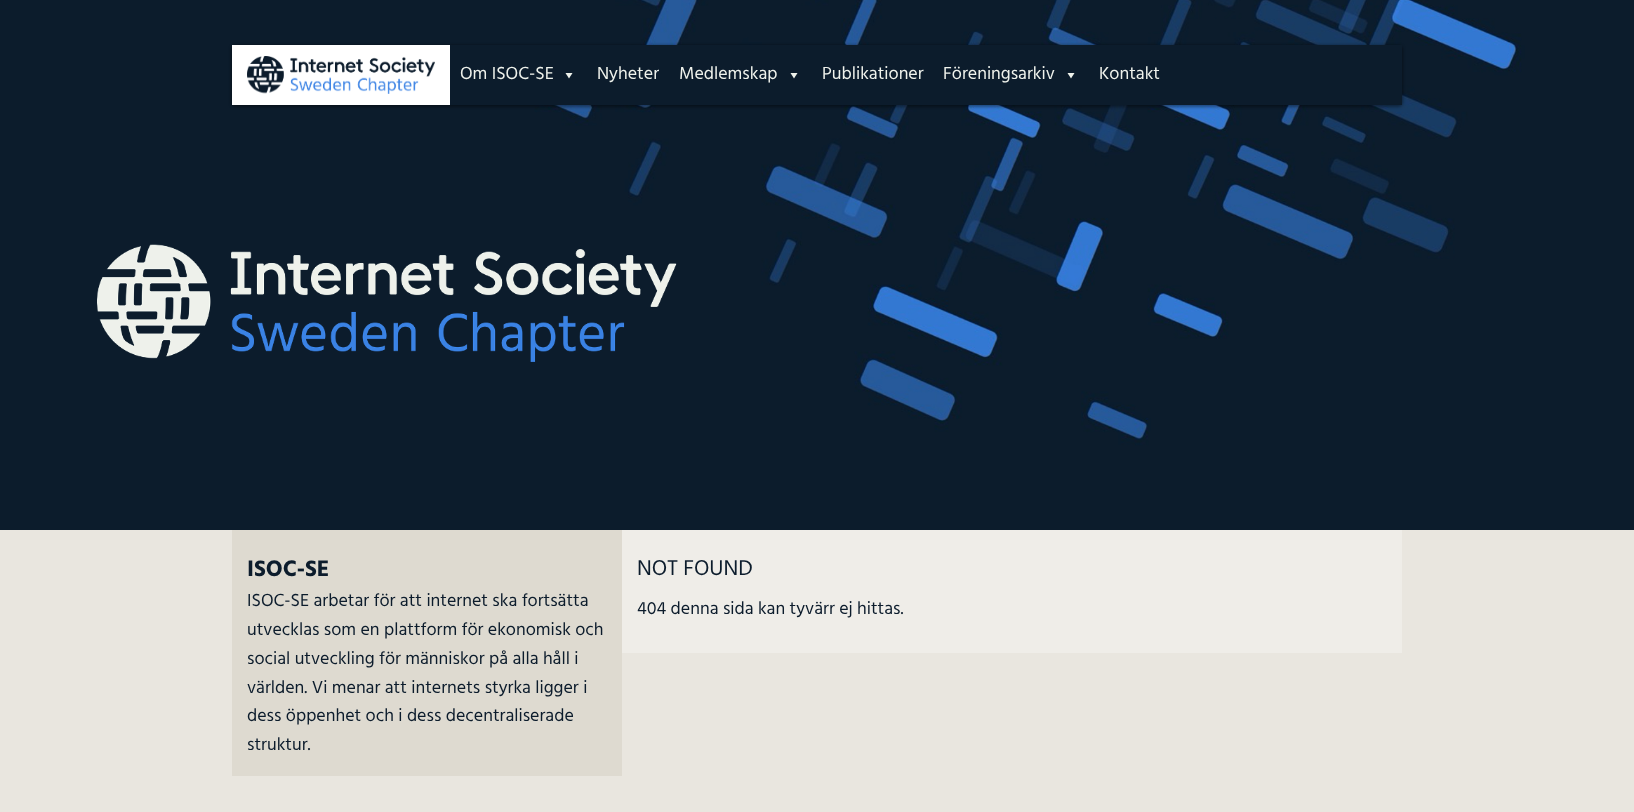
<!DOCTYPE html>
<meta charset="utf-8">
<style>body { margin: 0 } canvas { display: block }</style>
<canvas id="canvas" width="1634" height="812"></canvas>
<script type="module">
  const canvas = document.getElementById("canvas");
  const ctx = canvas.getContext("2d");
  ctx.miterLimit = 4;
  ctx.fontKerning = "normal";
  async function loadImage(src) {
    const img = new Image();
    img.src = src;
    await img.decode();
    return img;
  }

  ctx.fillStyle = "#e9e6df";
  ctx.fillRect(0, 0, 1634, 812);
  ctx.drawImage(await loadImage("img1.png"), 0, 0, 1634, 530);
  ctx.fillStyle = "rgba(0, 0, 0, 0.4)";
  ctx.filter = "blur(1.5px)";
  ctx.beginPath();
  ctx.roundRect(231, 45, 1172, 62, 5);
  ctx.fill();
  ctx.filter = "none";
  ctx.fillStyle = "#ffffff";
  ctx.fillRect(232, 45, 218, 60);
  ctx.drawImage(await loadImage("img2.png"), 247, 56, 188, 38);
  ctx.fillStyle = "#0c1c2c";
  ctx.fillRect(450, 45, 952, 60);
  ctx.font = "18px Hind";
  ctx.fillStyle = "#eff2ec";
  ctx.fillText("Om ISOC-SE", 460, 79);
  ctx.beginPath();
  ctx.moveTo(572.5, 73);
  ctx.lineTo(569, 78.5);
  ctx.lineTo(565.5, 73);
  ctx.closePath();
  ctx.fill();
  ctx.fillText("Nyheter", 597, 79);
  ctx.fillText("Medlemskap", 679, 79);
  ctx.beginPath();
  ctx.moveTo(797.5, 73);
  ctx.lineTo(794, 78.5);
  ctx.lineTo(790.5, 73);
  ctx.closePath();
  ctx.fill();
  ctx.fillText("Publikationer", 822, 79);
  ctx.fillText("Föreningsarkiv", 943, 79);
  ctx.beginPath();
  ctx.moveTo(1074.5, 73);
  ctx.lineTo(1071, 78.5);
  ctx.lineTo(1067.5, 73);
  ctx.closePath();
  ctx.fill();
  ctx.fillText("Kontakt", 1099, 79);
  ctx.fillStyle = "#dedad0";
  ctx.fillRect(232, 530, 390, 246);
  ctx.font = "bold 23px Hind";
  ctx.fillStyle = "#0c1c2c";
  ctx.fillText("ISOC-SE", 247, 576);
  ctx.font = "18px Hind";
  ctx.fillText("ISOC-SE arbetar för att internet ska fortsätta", 247, 606);
  ctx.fillText("utvecklas som en plattform för ekonomisk och", 247, 635);
  ctx.fillText("social utveckling för människor på alla håll i", 247, 664);
  ctx.fillText("världen. Vi menar att internets styrka ligger i", 247, 693);
  ctx.fillText("dess öppenhet och i dess decentraliserade", 247, 721);
  ctx.fillText("struktur.", 247, 750);
  ctx.fillStyle = "#efede8";
  ctx.fillRect(622, 530, 780, 123);
  ctx.font = "22px Hind";
  ctx.fillStyle = "#0c1c2c";
  ctx.fillText("NOT FOUND", 637, 575);
  ctx.font = "18px Hind";
  ctx.fillText("404 denna sida kan tyvärr ej hittas.", 637, 614);
</script>
